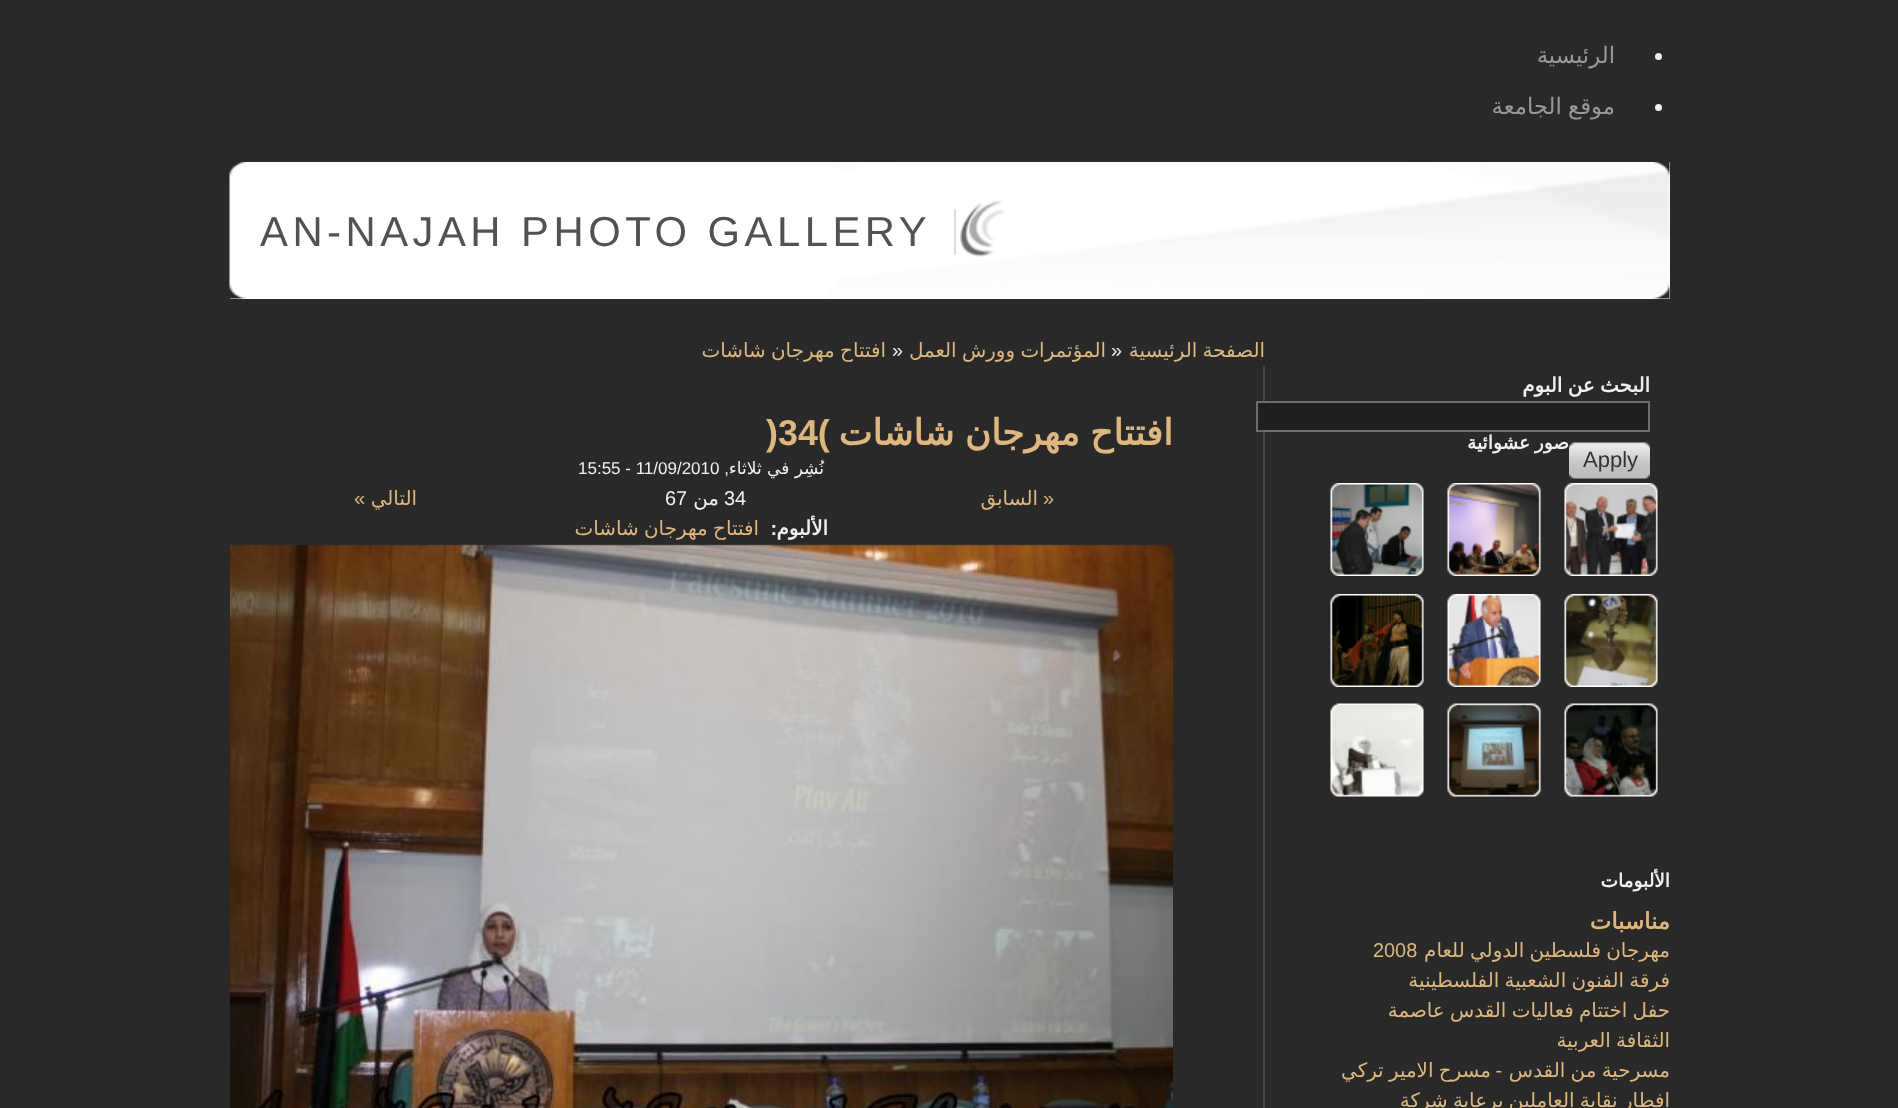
<!DOCTYPE html>
<meta charset="utf-8">
<style>body { margin: 0 } canvas { display: block }</style>
<canvas id="canvas" width="1898" height="1108"></canvas>
<script type="module">
  const canvas = document.getElementById("canvas");
  const ctx = canvas.getContext("2d");
  ctx.miterLimit = 4;
  ctx.fontKerning = "normal";
  async function loadImage(src) {
    const img = new Image();
    img.src = src;
    await img.decode();
    return img;
  }

  ctx.fillStyle = "#292929";
  ctx.fillRect(0, 0, 1898, 1108);
  ctx.fillStyle = "#f0f0f0";
  ctx.beginPath();
  ctx.arc(1658.5, 56.5, 3.5, 0, Math.PI * 2);
  ctx.fill();
  ctx.direction = "rtl";
  ctx.font = "22.75px DejaVu Sans";
  ctx.fillStyle = "#999999";
  ctx.fillText("الرئيسية", 1615, 63);
  ctx.fillStyle = "#f0f0f0";
  ctx.beginPath();
  ctx.arc(1658.5, 107.5, 3.5, 0, Math.PI * 2);
  ctx.fill();
  ctx.wordSpacing = "-1px";
  ctx.fillStyle = "#999999";
  ctx.fillText("موقع الجامعة", 1615, 114);
  ctx.fillStyle = "#ffffff";
  ctx.fillRect(230, 162, 1440, 137);
  ctx.drawImage(await loadImage("img1.png"), 229, 162, 1441, 137);
  ctx.drawImage(await loadImage("img2.png"), 960, 201, 44, 56);
  ctx.letterSpacing = "4.5px";
  ctx.wordSpacing = "0px";
  ctx.direction = "ltr";
  ctx.font = "41.8px Liberation Sans";
  ctx.fillStyle = "#525252";
  ctx.fillText("AN-NAJAH PHOTO GALLERY", 260, 246);
  ctx.fillStyle = "#dddddd";
  ctx.fillRect(954, 209, 2, 46);
  ctx.letterSpacing = "0px";
  ctx.wordSpacing = "-1px";
  ctx.direction = "rtl";
  ctx.font = "bold 19.9px DejaVu Sans";
  ctx.fillStyle = "#f0f0f0";
  ctx.fillText("البحث عن البوم", 1650, 392);
  ctx.fillStyle = "#444444";
  ctx.fillRect(1263, 366, 2, 742);
  ctx.fillStyle = "#1f1f1f";
  ctx.beginPath();
  ctx.rect(1257, 402, 392, 29);
  ctx.fill();
  ctx.strokeStyle = "#6d6d6d";
  ctx.lineWidth = 2;
  ctx.stroke();
  ctx.drawImage(await loadImage("img3.png"), 1638, 442, 12, 37);
  ctx.drawImage(await loadImage("img4.png"), 1569, 442, 69, 37);
  ctx.wordSpacing = "0px";
  ctx.direction = "ltr";
  ctx.font = "22px Liberation Sans";
  ctx.fillStyle = "#333333";
  ctx.fillText("Apply", 1583, 467);
  ctx.direction = "rtl";
  ctx.font = "bold 18.5px DejaVu Sans";
  ctx.fillStyle = "#f0f0f0";
  ctx.fillText("صور", 1569, 449);
  ctx.fillText("عشوائية", 1530, 449);
  ctx.drawImage(await loadImage("img5.png"), 1564, 483, 94, 93);
  ctx.drawImage(await loadImage("img6.png"), 1447, 483, 94, 93);
  ctx.drawImage(await loadImage("img7.png"), 1330, 483, 94, 93);
  ctx.drawImage(await loadImage("img8.png"), 1564, 594, 94, 93);
  ctx.drawImage(await loadImage("img9.png"), 1447, 594, 94, 93);
  ctx.drawImage(await loadImage("img10.png"), 1330, 594, 94, 93);
  ctx.drawImage(await loadImage("img11.png"), 1564, 703, 94, 94);
  ctx.drawImage(await loadImage("img12.png"), 1447, 703, 94, 94);
  ctx.drawImage(await loadImage("img13.png"), 1330, 703, 94, 94);
  ctx.fillText("الألبومات", 1670, 887);
  ctx.font = "bold 22.75px DejaVu Sans";
  ctx.fillStyle = "#dfb77c";
  ctx.fillText("مناسبات", 1670, 929);
  ctx.wordSpacing = "-1px";
  ctx.font = "19.9px DejaVu Sans";
  ctx.fillText("مهرجان فلسطين الدولي للعام", 1670, 957);
  ctx.wordSpacing = "0px";
  ctx.direction = "ltr";
  ctx.font = "19.9px Liberation Sans";
  ctx.fillText("2008", 1373, 957);
  ctx.wordSpacing = "-1px";
  ctx.direction = "rtl";
  ctx.font = "19.9px DejaVu Sans";
  ctx.fillText("فرقة الفنون الشعبية الفلسطينية", 1670, 987);
  ctx.fillText("حفل اختتام فعاليات القدس عاصمة", 1670, 1017);
  ctx.fillText("الثقافة العربية", 1670, 1047);
  ctx.fillText("مسرحية من القدس", 1670, 1077);
  ctx.wordSpacing = "0px";
  ctx.font = "19.9px Liberation Sans";
  ctx.fillText("-", 1502, 1077);
  ctx.wordSpacing = "-1px";
  ctx.font = "19.9px DejaVu Sans";
  ctx.fillText("مسرح الامير تركي", 1491, 1077);
  ctx.fillText("افطار نقابة العاملين برعاية شركة", 1670, 1107);
  ctx.fillText("الصفحة الرئيسية", 1265, 357);
  ctx.wordSpacing = "0px";
  ctx.direction = "ltr";
  ctx.font = "19.9px Liberation Sans";
  ctx.fillStyle = "#f0f0f0";
  ctx.fillText("»", 1111, 357);
  ctx.wordSpacing = "-1px";
  ctx.direction = "rtl";
  ctx.font = "19.9px DejaVu Sans";
  ctx.fillStyle = "#dfb77c";
  ctx.fillText("المؤتمرات وورش العمل", 1106, 357);
  ctx.wordSpacing = "0px";
  ctx.direction = "ltr";
  ctx.font = "19.9px Liberation Sans";
  ctx.fillStyle = "#f0f0f0";
  ctx.fillText("»", 892, 357);
  ctx.wordSpacing = "-1px";
  ctx.direction = "rtl";
  ctx.font = "19.9px DejaVu Sans";
  ctx.fillStyle = "#dfb77c";
  ctx.fillText("افتتاح مهرجان شاشات", 886, 357);
  ctx.font = "bold 35.9px DejaVu Sans";
  ctx.fillText("افتتاح مهرجان شاشات", 1173, 445);
  ctx.wordSpacing = "0px";
  ctx.direction = "ltr";
  ctx.font = "bold 35.9px Liberation Sans";
  ctx.fillText(")34(", 766, 445);
  ctx.direction = "rtl";
  ctx.font = "17px DejaVu Sans";
  ctx.fillStyle = "#f0f0f0";
  ctx.fillText("نُشِر في ثلاثاء", 824, 474);
  ctx.font = "17px Liberation Sans";
  ctx.fillText(",", 729, 474);
  ctx.direction = "ltr";
  ctx.fillText("15:55 - 11/09/2010", 578, 474);
  ctx.direction = "rtl";
  ctx.font = "19.9px Liberation Sans";
  ctx.fillStyle = "#dfb77c";
  ctx.fillText("«", 1054, 505);
  ctx.font = "19.9px DejaVu Sans";
  ctx.fillText("السابق", 1038, 505);
  ctx.direction = "ltr";
  ctx.font = "19.9px Liberation Sans";
  ctx.fillStyle = "#f0f0f0";
  ctx.fillText("34", 724, 505);
  ctx.direction = "rtl";
  ctx.font = "19.9px DejaVu Sans";
  ctx.fillText("من", 719, 505);
  ctx.direction = "ltr";
  ctx.font = "19.9px Liberation Sans";
  ctx.fillText("67", 665, 505);
  ctx.direction = "rtl";
  ctx.font = "19.9px DejaVu Sans";
  ctx.fillStyle = "#dfb77c";
  ctx.fillText("التالي", 417, 505);
  ctx.font = "19.9px Liberation Sans";
  ctx.fillText("»", 365, 505);
  ctx.font = "bold 19.9px DejaVu Sans";
  ctx.fillStyle = "#f0f0f0";
  ctx.fillText("الألبوم", 828, 535);
  ctx.font = "bold 19.9px Liberation Sans";
  ctx.fillText(":", 777, 535);
  ctx.wordSpacing = "-1px";
  ctx.font = "19.9px DejaVu Sans";
  ctx.fillStyle = "#dfb77c";
  ctx.fillText("افتتاح مهرجان شاشات", 759, 535);
  ctx.drawImage(await loadImage("img14.png"), 230, 544, 943, 564);
</script>
